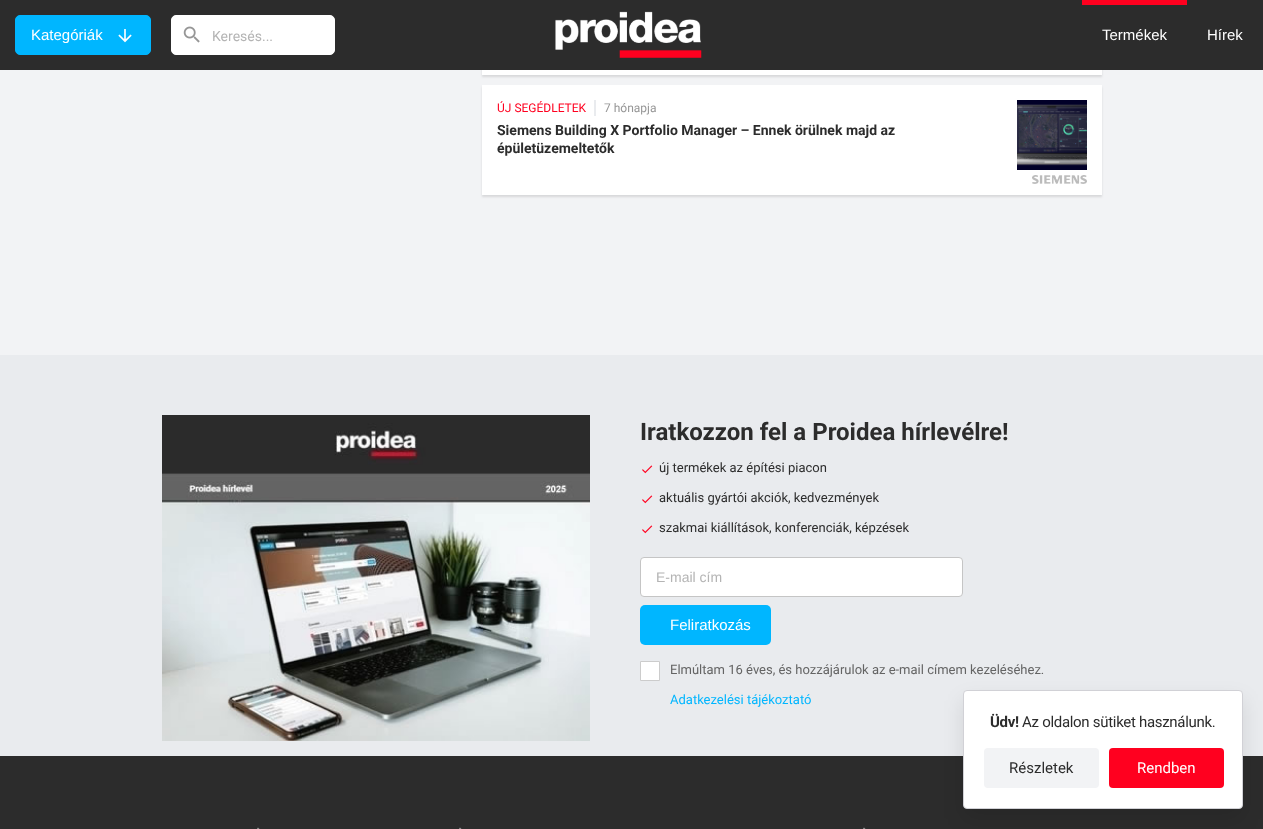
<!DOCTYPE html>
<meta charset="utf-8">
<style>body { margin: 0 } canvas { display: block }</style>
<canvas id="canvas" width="1263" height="829"></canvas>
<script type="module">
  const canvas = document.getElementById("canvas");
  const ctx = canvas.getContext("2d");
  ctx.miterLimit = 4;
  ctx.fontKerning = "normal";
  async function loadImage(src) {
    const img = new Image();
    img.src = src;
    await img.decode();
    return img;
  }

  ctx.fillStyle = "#f2f3f5";
  ctx.fillRect(0, 0, 1263, 829);
  ctx.fillStyle = "rgba(0, 0, 0, 0.11)";
  ctx.filter = "blur(1px)";
  ctx.beginPath();
  ctx.rect(482, -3, 620, 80);
  ctx.fill();
  ctx.filter = "none";
  ctx.fillStyle = "#2c2c2c";
  ctx.fillRect(0, 0, 1263, 70);
  ctx.fillStyle = "#00b6ff";
  ctx.beginPath();
  ctx.roundRect(15.5, 15.5, 135, 39, 4.5);
  ctx.fill();
  ctx.strokeStyle = "#00b6ff";
  ctx.stroke();
  ctx.font = "15px Liberation Sans";
  ctx.fillStyle = "#ffffff";
  ctx.fillText("Kategóriák", 31, 40);
  ctx.drawImage(await loadImage("img1.png"), 118, 29, 14, 14);
  ctx.beginPath();
  ctx.roundRect(171.5, 15.5, 163, 39, 4.5);
  ctx.fill();
  ctx.strokeStyle = "#ffffff";
  ctx.stroke();
  ctx.drawImage(await loadImage("img2.png"), 183, 26, 17, 17);
  ctx.font = "14px Roboto";
  ctx.fillStyle = "#b4b4b4";
  ctx.fillText("Keresés...", 212, 41);
  ctx.drawImage(await loadImage("img3.png"), 555, 11, 147, 47);
  ctx.fillStyle = "#ff001f";
  ctx.fillRect(1082, 0, 105, 5);
  ctx.font = "15px Liberation Sans";
  ctx.fillStyle = "#ffffff";
  ctx.fillText("Termékek", 1102, 40);
  ctx.fillText("Hírek", 1207, 40);
  ctx.fillRect(482, 70, 620, 5);
  ctx.fillStyle = "rgba(0, 0, 0, 0.11)";
  ctx.filter = "blur(1px)";
  ctx.beginPath();
  ctx.rect(482, 87, 620, 110);
  ctx.fill();
  ctx.filter = "none";
  ctx.fillStyle = "#ffffff";
  ctx.fillRect(482, 85, 620, 110);
  ctx.font = "12px Roboto";
  ctx.fillStyle = "#ff001f";
  ctx.fillText("ÚJ SEGÉDLETEK", 497, 112);
  ctx.fillStyle = "#e9ebee";
  ctx.fillRect(594, 100, 2, 16);
  ctx.fillStyle = "#969696";
  ctx.fillText("7 hónapja", 604, 112);
  ctx.font = "bold 14px Roboto";
  ctx.fillStyle = "#2c2c2c";
  ctx.fillText("Siemens Building X Portfolio Manager – Ennek örülnek majd az", 497, 135);
  ctx.fillText("épületüzemeltetők", 497, 153);
  ctx.drawImage(await loadImage("img4.png"), 1032, 175, 55, 9);
  ctx.drawImage(await loadImage("img5.png"), 1017, 100, 70, 70);
  ctx.fillStyle = "#e9ebee";
  ctx.fillRect(0, 355, 1263, 401);
  ctx.drawImage(await loadImage("img6.png"), 162, 415, 428, 326);
  ctx.font = "bold 24px Roboto";
  ctx.fillStyle = "#2c2c2c";
  ctx.fillText("Iratkozzon fel a Proidea hírlevélre!", 640, 440);
  ctx.drawImage(await loadImage("img7.png"), 642, 465, 11, 9);
  ctx.font = "13px Roboto";
  ctx.fillText("új termékek az építési piacon", 659, 472);
  ctx.drawImage(await loadImage("img7.png"), 642, 495, 11, 9);
  ctx.fillText("aktuális gyártói akciók, kedvezmények", 659, 502);
  ctx.drawImage(await loadImage("img7.png"), 642, 525, 11, 9);
  ctx.fillText("szakmai kiállítások, konferenciák, képzések", 659, 532);
  ctx.fillStyle = "#ffffff";
  ctx.beginPath();
  ctx.roundRect(640.5, 557.5, 322, 39, 3.5);
  ctx.fill();
  ctx.strokeStyle = "#c5c5c5";
  ctx.stroke();
  ctx.font = "14px Liberation Sans";
  ctx.fillStyle = "#b4b4b4";
  ctx.fillText("E-mail cím", 656, 582);
  ctx.fillStyle = "#00b6ff";
  ctx.beginPath();
  ctx.roundRect(640, 605, 131, 40, 5);
  ctx.fill();
  ctx.font = "15px Liberation Sans";
  ctx.fillStyle = "#ffffff";
  ctx.fillText("Feliratkozás", 670, 630);
  ctx.beginPath();
  ctx.rect(640.5, 661.5, 19, 19);
  ctx.fill();
  ctx.strokeStyle = "#cccccc";
  ctx.stroke();
  ctx.font = "13px Roboto";
  ctx.fillStyle = "#646464";
  ctx.fillText("Elmúltam 16 éves, és hozzájárulok az e-mail címem kezeléséhez.", 670, 674);
  ctx.fillStyle = "#00b6ff";
  ctx.fillText("Adatkezelési tájékoztató", 670, 704);
  ctx.fillStyle = "#2c2c2c";
  ctx.fillRect(0, 756, 1263, 73);
  ctx.fillStyle = "rgba(0, 0, 0, 0.1)";
  ctx.filter = "blur(10px)";
  ctx.beginPath();
  ctx.roundRect(963, 700, 280, 119, 4);
  ctx.fill();
  ctx.filter = "none";
  ctx.fillStyle = "#ffffff";
  ctx.beginPath();
  ctx.roundRect(963.5, 690.5, 279, 118, 3.5);
  ctx.fill();
  ctx.strokeStyle = "#d1d1d6";
  ctx.stroke();
  ctx.letterSpacing = "-0.3px";
  ctx.font = "bold 15px Roboto";
  ctx.fillStyle = "#2c2c2c";
  ctx.fillText("Üdv!", 990, 727);
  ctx.font = "15px Roboto";
  ctx.fillText("Az oldalon sütiket használunk.", 1022, 727);
  ctx.fillStyle = "#f2f3f5";
  ctx.beginPath();
  ctx.roundRect(984, 748, 115, 40, 4);
  ctx.fill();
  ctx.letterSpacing = "0px";
  ctx.fillStyle = "#2c2c2c";
  ctx.fillText("Részletek", 1009, 773);
  ctx.fillStyle = "#ff001f";
  ctx.beginPath();
  ctx.roundRect(1109, 748, 115, 40, 4);
  ctx.fill();
  ctx.fillStyle = "#ffffff";
  ctx.fillText("Rendben", 1137, 773);
  ctx.drawImage(await loadImage("img8.png"), 257, 827, 3, 2);
  ctx.drawImage(await loadImage("img8.png"), 459, 827, 3, 2);
  ctx.drawImage(await loadImage("img8.png"), 863, 827, 3, 2);
</script>
